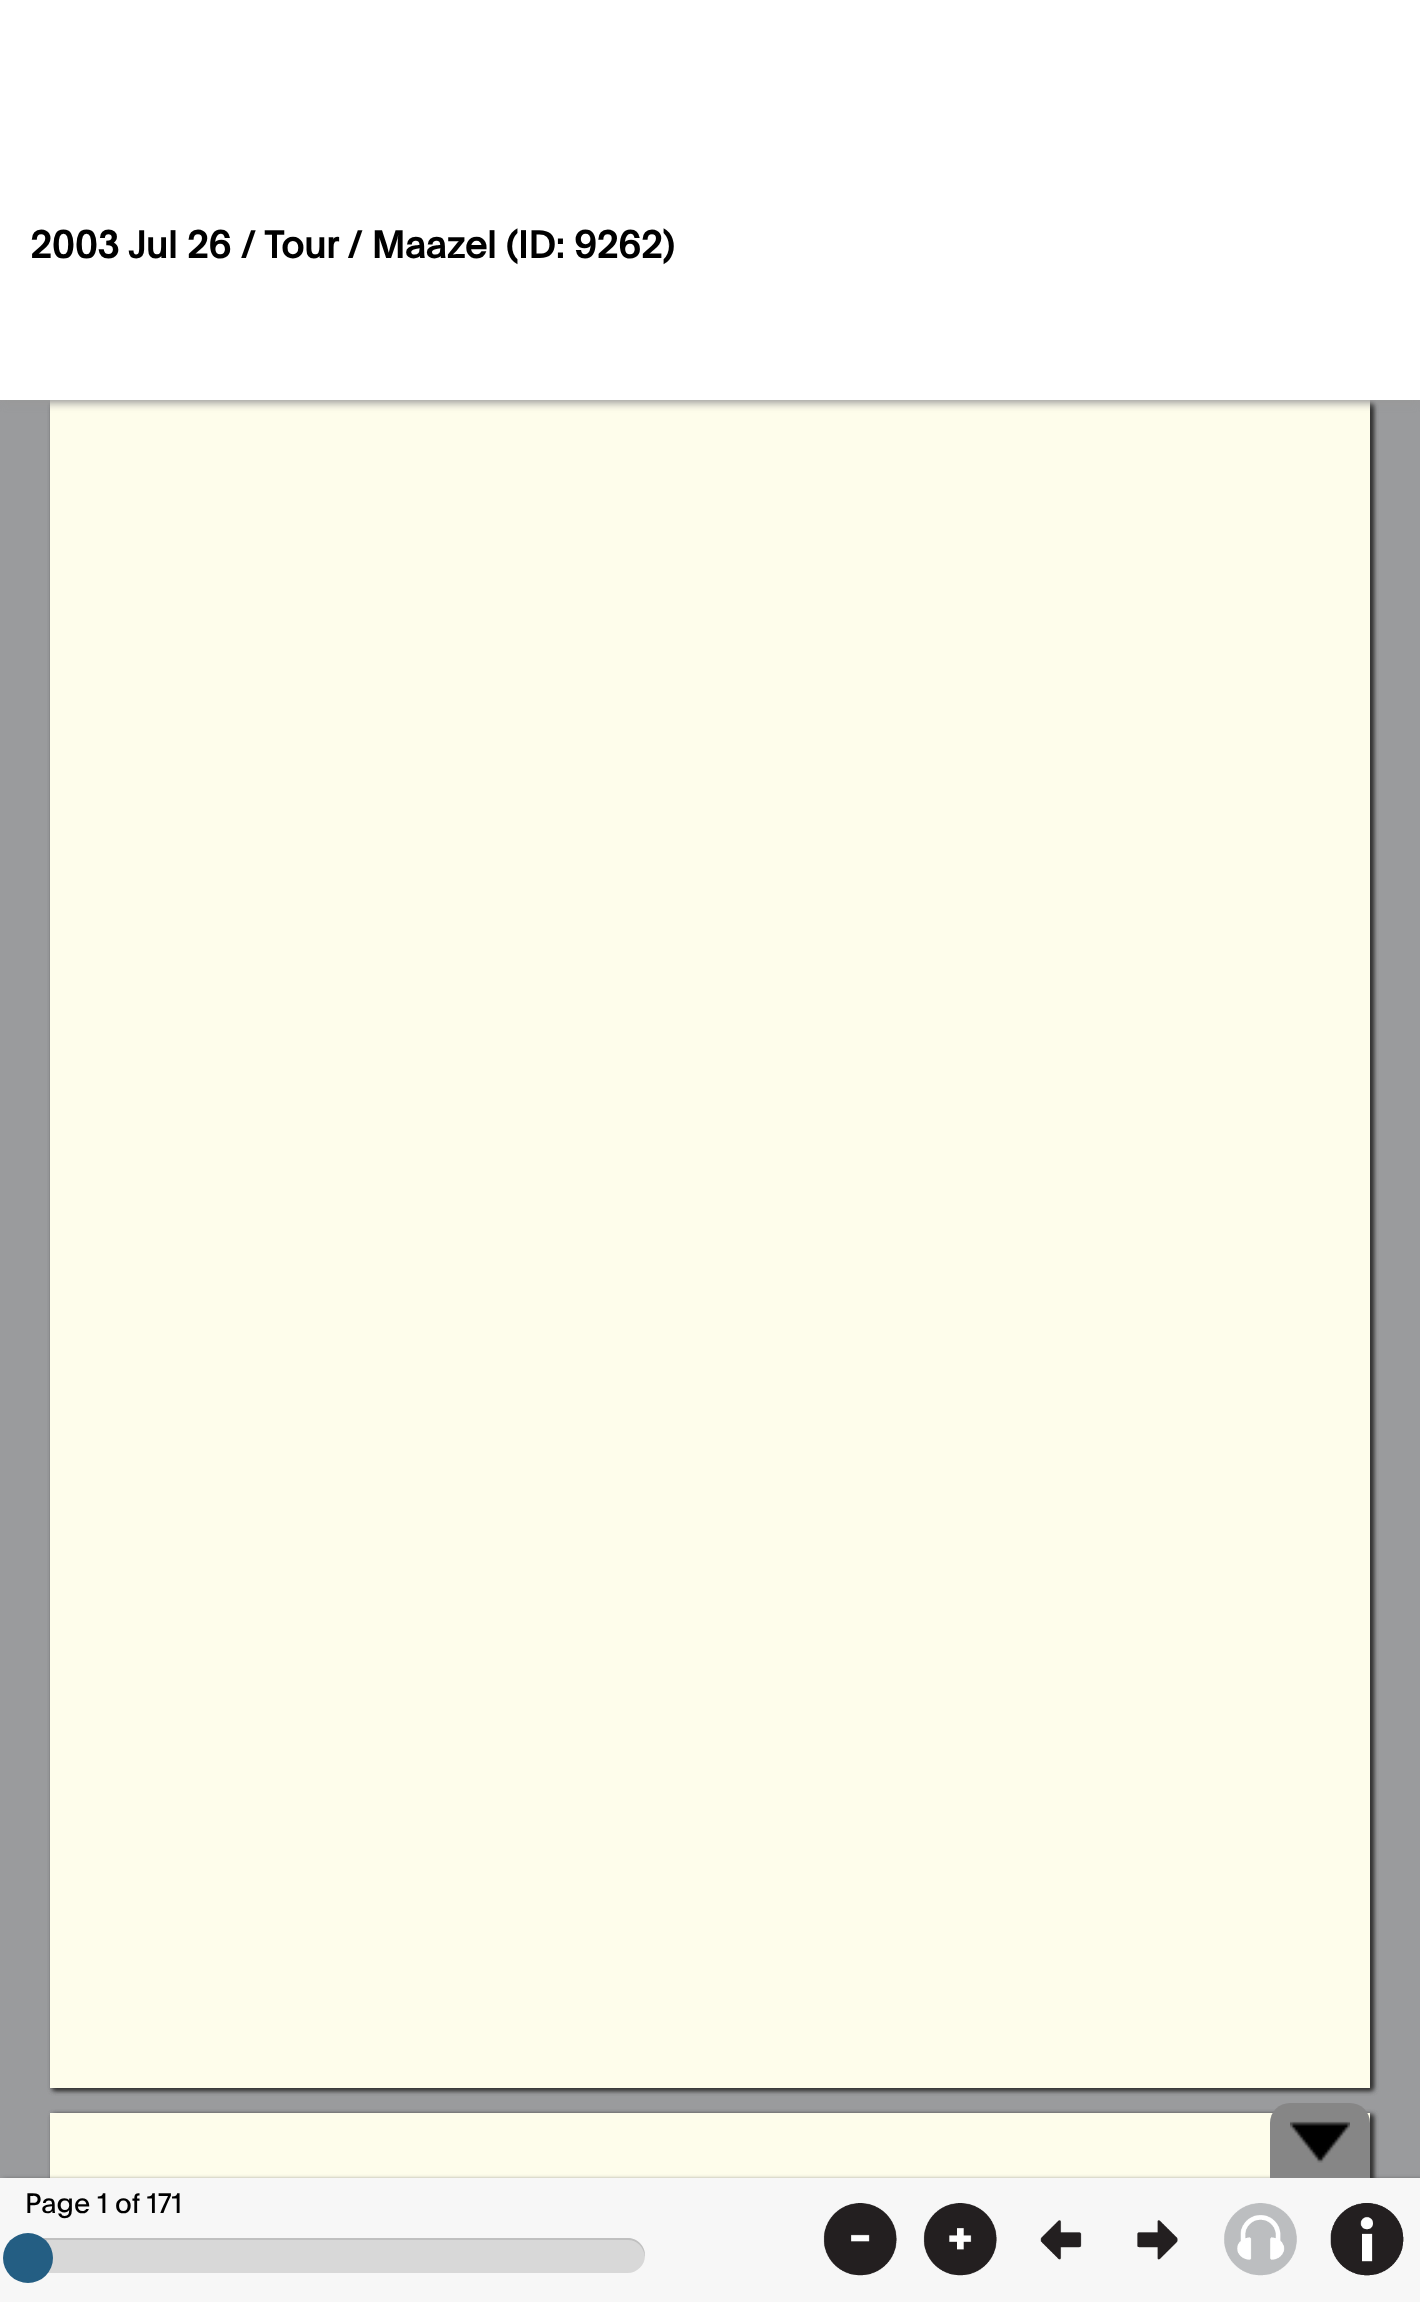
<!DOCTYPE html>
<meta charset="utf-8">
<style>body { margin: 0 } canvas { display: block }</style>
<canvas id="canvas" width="1420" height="2302"></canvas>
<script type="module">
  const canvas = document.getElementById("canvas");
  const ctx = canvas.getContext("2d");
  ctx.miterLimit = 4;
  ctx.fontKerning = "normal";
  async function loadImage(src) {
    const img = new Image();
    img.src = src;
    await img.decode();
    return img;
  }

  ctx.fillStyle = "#9a9b9d";
  ctx.fillRect(0, 0, 1420, 2302);
  ctx.fillStyle = "#333333";
  ctx.filter = "blur(2.5px)";
  ctx.beginPath();
  ctx.rect(53, 403, 1320, 1687);
  ctx.fill();
  ctx.filter = "none";
  ctx.filter = "blur(2.5px)";
  ctx.beginPath();
  ctx.rect(53, 403, 1320, 1687);
  ctx.fill();
  ctx.filter = "none";
  ctx.fillStyle = "#fefdeb";
  ctx.fillRect(50, 400, 1320, 1688);
  ctx.fillStyle = "#999999";
  ctx.filter = "blur(4px)";
  ctx.beginPath();
  ctx.rect(0, 3, 1420, 400);
  ctx.fill();
  ctx.filter = "none";
  ctx.fillStyle = "#ffffff";
  ctx.fillRect(0, 0, 1420, 400);
  ctx.font = "bold 37.5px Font";
  ctx.fillStyle = "#000000";
  ctx.fillText("2003 Jul 26 / Tour / Maazel (ID: 9262)", 30, 258);
  ctx.fillStyle = "#333333";
  ctx.filter = "blur(2.5px)";
  ctx.beginPath();
  ctx.rect(53, 2115, 1320, 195);
  ctx.fill();
  ctx.filter = "none";
  ctx.fillStyle = "#fefdeb";
  ctx.fillRect(50, 2113, 1320, 65);
  ctx.save();
  ctx.beginPath();
  ctx.moveTo(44, 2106);
  ctx.lineTo(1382, 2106);
  ctx.lineTo(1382, 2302);
  ctx.lineTo(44, 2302);
  ctx.closePath();
  ctx.moveTo(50, 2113);
  ctx.lineTo(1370, 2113);
  ctx.lineTo(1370, 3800);
  ctx.lineTo(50, 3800);
  ctx.closePath();
  ctx.clip("evenodd");
  ctx.fillStyle = "#333333";
  ctx.filter = "blur(2.5px)";
  ctx.beginPath();
  ctx.rect(53, 2115, 1320, 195);
  ctx.fill();
  ctx.filter = "none";
  ctx.restore();
  ctx.fillStyle = "#333333";
  ctx.filter = "blur(2.5px)";
  ctx.beginPath();
  ctx.rect(3, 2180, 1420, 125);
  ctx.fill();
  ctx.filter = "none";
  ctx.fillStyle = "#f7f7f7";
  ctx.fillRect(0, 2178, 1420, 124);
  ctx.fillStyle = "#868686";
  ctx.beginPath();
  ctx.roundRect(1270, 2103, 100, 75, [20, 20, 0, 0]);
  ctx.fill();
  ctx.drawImage(await loadImage("img1.png"), 1290, 2121, 60, 42);
  ctx.font = "27.5px Font";
  ctx.fillStyle = "#000000";
  ctx.fillText("Page 1 of 171", 25, 2213);
  ctx.drawImage(await loadImage("img2.png"), 823, 2203, 74, 73);
  ctx.drawImage(await loadImage("img3.png"), 923, 2203, 74, 73);
  ctx.drawImage(await loadImage("img4.png"), 1040, 2220, 42, 40);
  ctx.drawImage(await loadImage("img5.png"), 1137, 2220, 41, 40);
  ctx.drawImage(await loadImage("img6.png"), 1224, 2203, 73, 73);
  ctx.drawImage(await loadImage("img7.png"), 1330, 2203, 74, 73);
  ctx.fillStyle = "#d8d8d8";
  ctx.beginPath();
  ctx.roundRect(25, 2238, 620, 35, 17.5);
  ctx.fill();
  ctx.fillStyle = "rgba(155, 154, 155, 0.39)";
  ctx.beginPath();
  ctx.moveTo(42, 2240);
  ctx.lineTo(628, 2240);
  ctx.bezierCurveTo(637, 2240, 644, 2247, 645, 2257);
  ctx.bezierCurveTo(646, 2247, 638, 2238, 628, 2238);
  ctx.lineTo(42, 2238);
  ctx.bezierCurveTo(32, 2238, 24, 2247, 25, 2257);
  ctx.bezierCurveTo(26, 2247, 33, 2240, 42, 2240);
  ctx.closePath();
  ctx.fill();
  ctx.fillStyle = "#245e83";
  ctx.beginPath();
  ctx.arc(28, 2258, 25, 0, Math.PI * 2);
  ctx.fill();
</script>
